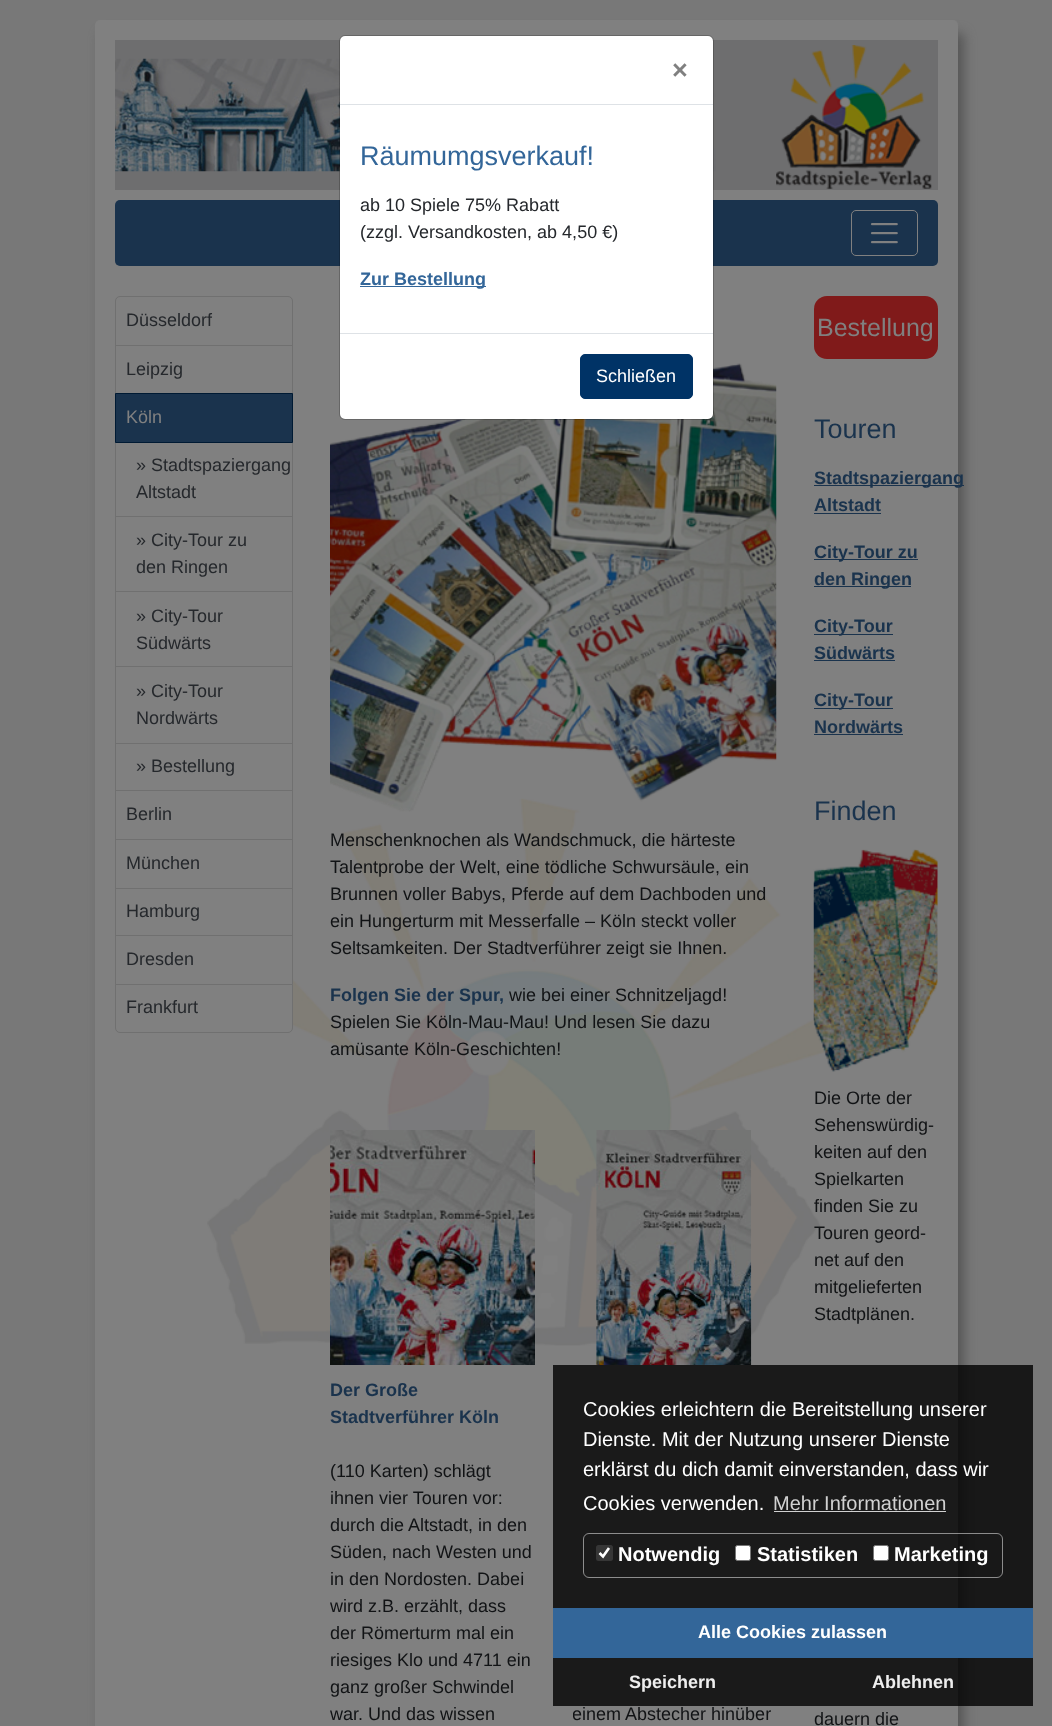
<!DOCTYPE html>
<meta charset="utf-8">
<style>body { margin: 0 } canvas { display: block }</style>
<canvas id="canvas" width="1052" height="1726"></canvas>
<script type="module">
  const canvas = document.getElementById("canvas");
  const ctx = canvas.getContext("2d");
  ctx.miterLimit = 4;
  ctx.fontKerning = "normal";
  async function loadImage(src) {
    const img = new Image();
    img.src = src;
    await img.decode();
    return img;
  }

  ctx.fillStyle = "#787878";
  ctx.fillRect(0, 0, 1052, 1726);
  ctx.fillStyle = "#555555";
  ctx.filter = "blur(6px)";
  ctx.beginPath();
  ctx.roundRect(101, 33, 863, 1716, 5);
  ctx.fill();
  ctx.filter = "none";
  ctx.fillStyle = "#808080";
  ctx.beginPath();
  ctx.roundRect(95, 20, 863, 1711, 5);
  ctx.fill();
  ctx.drawImage(await loadImage("img1.png"), 207, 798, 626, 548);
  ctx.fillStyle = "#6e6e6f";
  ctx.fillRect(115, 40, 823, 150);
  ctx.drawImage(await loadImage("img2.png"), 115, 58, 601, 114);
  ctx.drawImage(await loadImage("img3.png"), 776, 45, 156, 144);
  ctx.fillStyle = "#1a334d";
  ctx.beginPath();
  ctx.roundRect(115, 200, 823, 66, 5);
  ctx.fill();
  ctx.beginPath();
  ctx.roundRect(851.5, 210.5, 66, 45, 4.5);
  ctx.strokeStyle = "#808080";
  ctx.stroke();
  ctx.drawImage(await loadImage("img4.png"), 870, 223, 28, 21);
  ctx.beginPath();
  ctx.roundRect(115.5, 296.5, 177, 49, [4.5, 4.5, 0, 0]);
  ctx.strokeStyle = "#707070";
  ctx.stroke();
  ctx.font = "18px Liberation Sans";
  ctx.fillStyle = "#25282c";
  ctx.fillText("Düsseldorf", 126, 326);
  ctx.strokeRect(115.5, 345.5, 177, 48);
  ctx.fillText("Leipzig", 126, 375);
  ctx.strokeRect(115.5, 441.5, 177, 76);
  ctx.fillStyle = "#1a334d";
  ctx.beginPath();
  ctx.rect(115.5, 393.5, 177, 49);
  ctx.fill();
  ctx.strokeStyle = "#001a33";
  ctx.stroke();
  ctx.fillStyle = "#808080";
  ctx.fillText("Köln", 126, 423);
  ctx.fillStyle = "#25282c";
  ctx.fillText("» Stadtspaziergang", 136, 471);
  ctx.fillText("Altstadt", 136, 498);
  ctx.fillStyle = "#808080";
  ctx.fillRect(116, 517, 176, 1);
  ctx.strokeStyle = "#707070";
  ctx.strokeRect(115.5, 516.5, 177, 76);
  ctx.fillStyle = "#25282c";
  ctx.fillText("» City-Tour zu", 136, 546);
  ctx.fillText("den Ringen", 136, 573);
  ctx.fillStyle = "#808080";
  ctx.fillRect(116, 592, 176, 1);
  ctx.strokeRect(115.5, 591.5, 177, 76);
  ctx.fillStyle = "#25282c";
  ctx.fillText("» City-Tour", 136, 622);
  ctx.fillText("Südwärts", 136, 649);
  ctx.fillStyle = "#808080";
  ctx.fillRect(116, 667, 176, 1);
  ctx.strokeRect(115.5, 666.5, 177, 77);
  ctx.fillStyle = "#25282c";
  ctx.fillText("» City-Tour", 136, 697);
  ctx.fillText("Nordwärts", 136, 724);
  ctx.strokeRect(115.5, 743.5, 177, 47);
  ctx.fillText("» Bestellung", 136, 772);
  ctx.strokeRect(115.5, 790.5, 177, 49);
  ctx.fillText("Berlin", 126, 820);
  ctx.strokeRect(115.5, 839.5, 177, 49);
  ctx.fillText("München", 126, 869);
  ctx.strokeRect(115.5, 888.5, 177, 47);
  ctx.fillText("Hamburg", 126, 917);
  ctx.fillStyle = "#808080";
  ctx.fillRect(252, 946, 40, 38);
  ctx.strokeRect(115.5, 935.5, 177, 49);
  ctx.fillStyle = "#25282c";
  ctx.fillText("Dresden", 126, 965);
  ctx.fillStyle = "#808080";
  ctx.beginPath();
  ctx.roundRect(115.5, 984.5, 177, 48, [0, 0, 4.5, 4.5]);
  ctx.fill();
  ctx.stroke();
  ctx.fillStyle = "#25282c";
  ctx.fillText("Frankfurt", 126, 1013);
  ctx.drawImage(await loadImage("img5.png"), 330, 363, 447, 449);
  ctx.fillStyle = "#ffffff";
  ctx.beginPath();
  ctx.roundRect(340, 36, 373, 383, 5);
  ctx.fill();
  ctx.beginPath();
  ctx.roundRect(339.5, 35.5, 374, 384, 5.5);
  ctx.strokeStyle = "rgba(0, 0, 0, 0.2)";
  ctx.stroke();
  ctx.fillStyle = "#dee2e6";
  ctx.fillRect(340, 104, 373, 1);
  ctx.font = "bold 27px Liberation Sans";
  ctx.fillStyle = "#808080";
  ctx.fillText("×", 672, 79);
  ctx.font = "27px Liberation Sans";
  ctx.fillStyle = "#336699";
  ctx.fillText("Räumumgsverkauf!", 360, 165);
  ctx.font = "18px Liberation Sans";
  ctx.fillStyle = "#25282c";
  ctx.fillText("ab 10 Spiele 75% Rabatt", 360, 211);
  ctx.fillText("(zzgl. Versandkosten, ab 4,50 €)", 360, 238);
  ctx.fillStyle = "#336699";
  ctx.fillRect(360, 286, 126, 1);
  ctx.font = "bold 18px Liberation Sans";
  ctx.fillText("Zur Bestellung", 360, 285);
  ctx.fillStyle = "#dee2e6";
  ctx.fillRect(340, 333, 373, 1);
  ctx.fillStyle = "#003366";
  ctx.beginPath();
  ctx.roundRect(580.5, 354.5, 112, 44, 4.5);
  ctx.fill();
  ctx.strokeStyle = "#003366";
  ctx.stroke();
  ctx.font = "18px Liberation Sans";
  ctx.fillStyle = "#ffffff";
  ctx.fillText("Schließen", 596, 382);
  ctx.fillStyle = "#111315";
  ctx.fillText("Menschenknochen als Wandschmuck, die härteste", 330, 846);
  ctx.fillText("Talentprobe der Welt, eine tödliche Schwursäule, ein", 330, 873);
  ctx.fillText("Brunnen voller Babys, Pferde auf dem Dachboden und", 330, 900);
  ctx.fillText("ein Hungerturm mit Messerfalle – Köln steckt voller", 330, 927);
  ctx.fillText("Seltsamkeiten. Der Stadtverführer zeigt sie Ihnen.", 330, 954);
  ctx.font = "bold 18px Liberation Sans";
  ctx.fillStyle = "#1a334d";
  ctx.fillText("Folgen Sie der Spur,", 330, 1001);
  ctx.font = "18px Liberation Sans";
  ctx.fillStyle = "#111315";
  ctx.fillText("wie bei einer Schnitzeljagd!", 509, 1001);
  ctx.fillText("Spielen Sie Köln-Mau-Mau! Und lesen Sie dazu", 330, 1028);
  ctx.fillText("amüsante Köln-Geschichten!", 330, 1055);
  ctx.drawImage(await loadImage("img6.png"), 330, 1130, 205, 235);
  ctx.font = "bold 18px Liberation Sans";
  ctx.fillStyle = "#1a334d";
  ctx.fillText("Der Große", 330, 1396);
  ctx.fillText("Stadtverführer Köln", 330, 1423);
  ctx.font = "18px Liberation Sans";
  ctx.fillStyle = "#111315";
  ctx.fillText("(110 Karten) schlägt", 330, 1477);
  ctx.fillText("ihnen vier Touren vor:", 330, 1504);
  ctx.fillText("durch die Altstadt, in den", 330, 1531);
  ctx.fillText("Süden, nach Westen und", 330, 1558);
  ctx.fillText("in den Nordosten. Dabei", 330, 1585);
  ctx.fillText("wird z.B. erzählt, dass", 330, 1612);
  ctx.fillText("der Römerturm mal ein", 330, 1639);
  ctx.fillText("riesiges Klo und 4711 ein", 330, 1666);
  ctx.fillText("ganz großer Schwindel", 330, 1693);
  ctx.fillText("war. Und das wissen", 330, 1720);
  ctx.drawImage(await loadImage("img7.png"), 596, 1130, 156, 235);
  ctx.save();
  ctx.beginPath();
  ctx.rect(573, 1130, 203, 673);
  ctx.clip();
  ctx.fillText("einem Abstecher hinüber", 572, 1720);
  ctx.restore();
  ctx.fillStyle = "#801a1a";
  ctx.beginPath();
  ctx.roundRect(814, 296, 124, 63, 13);
  ctx.fill();
  ctx.font = "25px Liberation Sans";
  ctx.fillStyle = "#808080";
  ctx.fillText("Bestellung", 817, 336);
  ctx.font = "27px Liberation Sans";
  ctx.fillStyle = "#1a334d";
  ctx.fillText("Touren", 814, 438);
  ctx.fillRect(814, 485, 150, 1);
  ctx.font = "bold 18px Liberation Sans";
  ctx.fillText("Stadtspaziergang", 814, 484);
  ctx.fillText("Altstadt", 814, 511);
  ctx.fillRect(814, 513, 67, 1);
  ctx.fillRect(814, 559, 104, 1);
  ctx.fillText("City-Tour zu", 814, 558);
  ctx.fillRect(814, 586, 97, 1);
  ctx.fillText("den Ringen", 814, 585);
  ctx.fillRect(814, 634, 79, 1);
  ctx.fillText("City-Tour", 814, 632);
  ctx.fillText("Südwärts", 814, 659);
  ctx.fillRect(814, 660, 81, 1);
  ctx.fillRect(814, 708, 79, 1);
  ctx.fillText("City-Tour", 814, 706);
  ctx.fillText("Nordwärts", 814, 733);
  ctx.fillRect(814, 734, 89, 1);
  ctx.font = "27px Liberation Sans";
  ctx.fillText("Finden", 814, 820);
  ctx.drawImage(await loadImage("img8.png"), 813, 849, 125, 223);
  ctx.font = "18px Liberation Sans";
  ctx.fillStyle = "#111315";
  ctx.fillText("Die Orte der", 814, 1104);
  ctx.fillText("Sehenswürdig-", 814, 1131);
  ctx.fillText("keiten auf den", 814, 1158);
  ctx.fillText("Spielkarten", 814, 1185);
  ctx.fillText("finden Sie zu", 814, 1212);
  ctx.fillText("Touren geord-", 814, 1239);
  ctx.fillText("net auf den", 814, 1266);
  ctx.fillText("mitgelieferten", 814, 1293);
  ctx.fillText("Stadtplänen.", 814, 1320);
  ctx.fillText("dauern die", 814, 1725);
  ctx.fillStyle = "rgba(0, 0, 0, 0.8)";
  ctx.fillRect(553, 1365, 480, 341);
  ctx.font = "20px Liberation Sans";
  ctx.fillStyle = "#ffffff";
  ctx.fillText("Cookies erleichtern die Bereitstellung unserer", 583, 1416);
  ctx.fillText("Dienste. Mit der Nutzung unserer Dienste", 583, 1446);
  ctx.fillText("erklärst du dich damit einverstanden, dass wir", 583, 1476);
  ctx.fillText("Cookies verwenden.", 583, 1510);
  ctx.fillStyle = "#d1d1d1";
  ctx.fillText("Mehr Informationen", 773, 1510);
  ctx.fillRect(774, 1511, 172, 1);
  ctx.beginPath();
  ctx.roundRect(583.5, 1533.5, 419, 44, 5.5);
  ctx.strokeStyle = "rgba(255, 255, 255, 0.5)";
  ctx.stroke();
  ctx.fillStyle = "rgba(118, 118, 118, 0.3)";
  ctx.beginPath();
  ctx.roundRect(596, 1545, 17, 16, 2.5);
  ctx.fill();
  ctx.beginPath();
  ctx.moveTo(599.5, 1553);
  ctx.lineTo(603, 1556.5);
  ctx.lineTo(609, 1548);
  ctx.strokeStyle = "#ffffff";
  ctx.lineWidth = 2.6;
  ctx.stroke();
  ctx.font = "bold 20px Liberation Sans";
  ctx.fillStyle = "#ffffff";
  ctx.fillText("Notwendig", 618, 1561);
  ctx.beginPath();
  ctx.roundRect(735.5, 1545.5, 15, 15, 2);
  ctx.fill();
  ctx.strokeStyle = "#767676";
  ctx.lineWidth = 1;
  ctx.stroke();
  ctx.fillText("Statistiken", 757, 1561);
  ctx.beginPath();
  ctx.roundRect(873.5, 1545.5, 15, 15, 2);
  ctx.fill();
  ctx.stroke();
  ctx.fillText("Marketing", 894, 1561);
  ctx.fillStyle = "#336699";
  ctx.fillRect(553, 1608, 480, 50);
  ctx.font = "bold 18px Liberation Sans";
  ctx.fillStyle = "#ffffff";
  ctx.fillText("Alle Cookies zulassen", 698, 1638);
  ctx.fillStyle = "#eeeeee";
  ctx.fillText("Speichern", 629, 1688);
  ctx.fillText("Ablehnen", 872, 1688);
</script>
